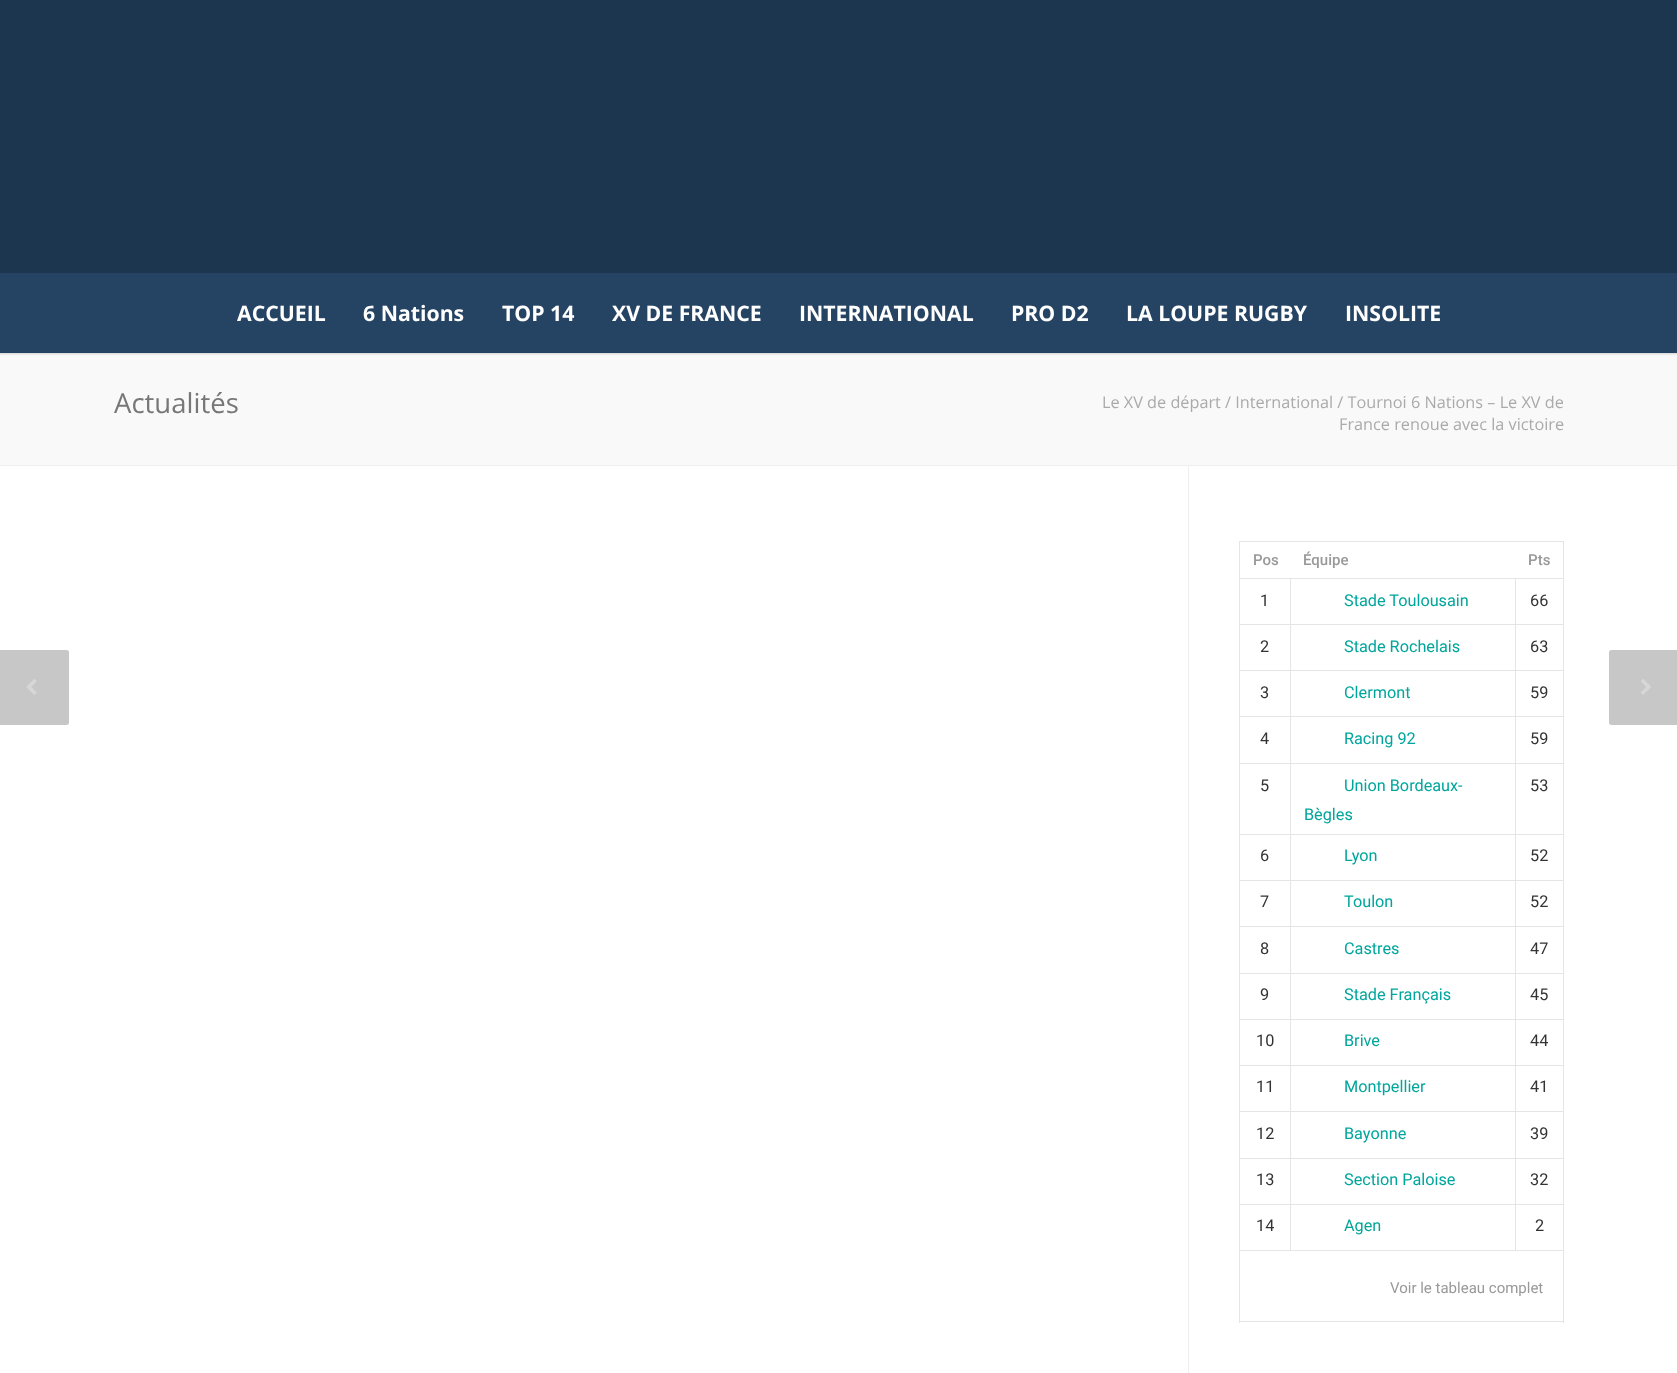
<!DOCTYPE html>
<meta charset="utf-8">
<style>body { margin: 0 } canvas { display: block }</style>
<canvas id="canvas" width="1677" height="1373"></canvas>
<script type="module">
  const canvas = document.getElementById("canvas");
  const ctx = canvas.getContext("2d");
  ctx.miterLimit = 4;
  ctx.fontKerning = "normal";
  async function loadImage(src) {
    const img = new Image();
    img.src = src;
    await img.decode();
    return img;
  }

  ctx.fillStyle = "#ffffff";
  ctx.fillRect(0, 0, 1677, 1373);
  ctx.fillStyle = "#f9f9f9";
  ctx.fillRect(0, 353, 1677, 112);
  ctx.fillStyle = "rgba(0, 0, 0, 0.16)";
  ctx.filter = "blur(1px)";
  ctx.beginPath();
  ctx.rect(-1, -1, 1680, 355);
  ctx.fill();
  ctx.filter = "none";
  ctx.fillStyle = "#1d364f";
  ctx.fillRect(0, 0, 1677, 273);
  ctx.fillStyle = "#254362";
  ctx.fillRect(0, 273, 1677, 80);
  ctx.font = "bold 21.25px Open Sans";
  ctx.fillStyle = "#ffffff";
  ctx.fillText("ACCUEIL", 237, 321);
  ctx.fillText("6 Nations", 363, 321);
  ctx.fillText("TOP 14", 502, 321);
  ctx.fillText("XV DE FRANCE", 612, 321);
  ctx.fillText("INTERNATIONAL", 799, 321);
  ctx.fillText("PRO D2", 1011, 321);
  ctx.fillText("LA LOUPE RUGBY", 1126, 321);
  ctx.fillText("INSOLITE", 1345, 321);
  ctx.fillStyle = "#efefef";
  ctx.fillRect(0, 465, 1677, 1);
  ctx.font = "27.5px Open Sans";
  ctx.fillStyle = "#777777";
  ctx.fillText("Actualités", 114, 413);
  ctx.font = "16.25px Open Sans";
  ctx.fillStyle = "#aaaaaa";
  ctx.fillText("Le XV de départ / International / Tournoi 6 Nations – Le XV de", 1102, 408);
  ctx.fillText("France renoue avec la victoire", 1339, 430);
  ctx.fillStyle = "#efefef";
  ctx.fillRect(1188, 466, 1, 907);
  ctx.fillStyle = "#c7c7c7";
  ctx.beginPath();
  ctx.moveTo(-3, 650);
  ctx.lineTo(66.5, 650);
  ctx.bezierCurveTo(68, 650, 69, 651, 69, 652.5);
  ctx.lineTo(69, 722.5);
  ctx.bezierCurveTo(69, 724, 68, 725, 66.5, 725);
  ctx.lineTo(-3, 725);
  ctx.closePath();
  ctx.fill();
  ctx.drawImage(await loadImage("img1.png"), 26, 679, 11, 16);
  ctx.beginPath();
  ctx.moveTo(1611.5, 650);
  ctx.lineTo(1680, 650);
  ctx.lineTo(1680, 725);
  ctx.lineTo(1611.5, 725);
  ctx.bezierCurveTo(1610, 725, 1609, 724, 1609, 722.5);
  ctx.lineTo(1609, 652.5);
  ctx.bezierCurveTo(1609, 651, 1610, 650, 1611.5, 650);
  ctx.closePath();
  ctx.fill();
  ctx.drawImage(await loadImage("img2.png"), 1641, 679, 10, 16);
  ctx.fillStyle = "#e5e5e5";
  ctx.fillRect(1239, 541, 325, 1);
  ctx.fillRect(1563, 541, 1, 782);
  ctx.fillRect(1239, 1250, 325, 1);
  ctx.fillRect(1239, 541, 1, 710);
  ctx.font = "500 15px Roboto";
  ctx.fillStyle = "#999999";
  ctx.fillText("Pos", 1253, 565);
  ctx.fillText("Équipe", 1303, 565);
  ctx.fillText("Pts", 1528, 565);
  ctx.fillStyle = "#e5e5e5";
  ctx.fillRect(1515, 578, 49, 1);
  ctx.fillRect(1515, 624, 49, 1);
  ctx.fillRect(1515, 670, 49, 1);
  ctx.fillRect(1515, 716, 49, 1);
  ctx.fillRect(1515, 763, 49, 1);
  ctx.fillRect(1515, 834, 49, 1);
  ctx.fillRect(1515, 880, 49, 1);
  ctx.fillRect(1515, 926, 49, 1);
  ctx.fillRect(1515, 973, 49, 1);
  ctx.fillRect(1515, 1019, 49, 1);
  ctx.fillRect(1515, 1065, 49, 1);
  ctx.fillRect(1515, 1111, 49, 1);
  ctx.fillRect(1515, 1158, 49, 1);
  ctx.fillRect(1515, 1204, 49, 1);
  ctx.fillRect(1515, 1204, 1, 47);
  ctx.fillRect(1290, 1204, 226, 1);
  ctx.fillRect(1515, 1158, 1, 47);
  ctx.fillRect(1290, 1158, 226, 1);
  ctx.fillRect(1515, 1111, 1, 48);
  ctx.fillRect(1290, 1111, 226, 1);
  ctx.fillRect(1515, 1065, 1, 48);
  ctx.fillRect(1290, 1065, 226, 1);
  ctx.fillRect(1515, 1019, 1, 47);
  ctx.fillRect(1290, 1019, 226, 1);
  ctx.fillRect(1515, 973, 1, 47);
  ctx.fillRect(1290, 973, 226, 1);
  ctx.fillRect(1515, 926, 1, 48);
  ctx.fillRect(1290, 926, 226, 1);
  ctx.fillRect(1515, 880, 1, 48);
  ctx.fillRect(1290, 880, 226, 1);
  ctx.fillRect(1515, 834, 1, 47);
  ctx.fillRect(1290, 834, 226, 1);
  ctx.fillRect(1515, 763, 1, 72);
  ctx.fillRect(1290, 763, 226, 1);
  ctx.fillRect(1515, 716, 1, 48);
  ctx.fillRect(1290, 716, 226, 1);
  ctx.fillRect(1515, 670, 1, 48);
  ctx.fillRect(1290, 670, 226, 1);
  ctx.fillRect(1515, 624, 1, 47);
  ctx.fillRect(1290, 624, 226, 1);
  ctx.fillRect(1515, 578, 1, 47);
  ctx.fillRect(1290, 578, 226, 1);
  ctx.fillRect(1290, 1204, 1, 47);
  ctx.fillRect(1239, 1204, 52, 1);
  ctx.fillRect(1290, 1158, 1, 47);
  ctx.fillRect(1239, 1158, 52, 1);
  ctx.fillRect(1290, 1111, 1, 48);
  ctx.fillRect(1239, 1111, 52, 1);
  ctx.fillRect(1290, 1065, 1, 48);
  ctx.fillRect(1239, 1065, 52, 1);
  ctx.fillRect(1290, 1019, 1, 47);
  ctx.fillRect(1239, 1019, 52, 1);
  ctx.fillRect(1290, 973, 1, 47);
  ctx.fillRect(1239, 973, 52, 1);
  ctx.fillRect(1290, 926, 1, 48);
  ctx.fillRect(1239, 926, 52, 1);
  ctx.fillRect(1290, 880, 1, 48);
  ctx.fillRect(1239, 880, 52, 1);
  ctx.fillRect(1290, 834, 1, 47);
  ctx.fillRect(1239, 834, 52, 1);
  ctx.fillRect(1290, 763, 1, 72);
  ctx.fillRect(1239, 763, 52, 1);
  ctx.fillRect(1290, 716, 1, 48);
  ctx.fillRect(1239, 716, 52, 1);
  ctx.fillRect(1290, 670, 1, 48);
  ctx.fillRect(1239, 670, 52, 1);
  ctx.fillRect(1290, 624, 1, 47);
  ctx.fillRect(1239, 624, 52, 1);
  ctx.fillRect(1290, 578, 1, 47);
  ctx.fillRect(1239, 578, 52, 1);
  ctx.font = "16.25px Roboto";
  ctx.fillStyle = "#333333";
  ctx.fillText("1", 1260, 606);
  ctx.fillStyle = "#00a69c";
  ctx.fillText("Stade Toulousain", 1344, 606);
  ctx.fillStyle = "#333333";
  ctx.fillText("66", 1530, 606);
  ctx.fillText("2", 1260, 652);
  ctx.fillStyle = "#00a69c";
  ctx.fillText("Stade Rochelais", 1344, 652);
  ctx.fillStyle = "#333333";
  ctx.fillText("63", 1530, 652);
  ctx.fillText("3", 1260, 698);
  ctx.fillStyle = "#00a69c";
  ctx.fillText("Clermont", 1344, 698);
  ctx.fillStyle = "#333333";
  ctx.fillText("59", 1530, 698);
  ctx.fillText("4", 1260, 744);
  ctx.fillStyle = "#00a69c";
  ctx.fillText("Racing 92", 1344, 744);
  ctx.fillStyle = "#333333";
  ctx.fillText("59", 1530, 744);
  ctx.fillText("5", 1260, 791);
  ctx.fillStyle = "#00a69c";
  ctx.fillText("Union Bordeaux-", 1344, 791);
  ctx.fillText("Bègles", 1304, 820);
  ctx.fillStyle = "#333333";
  ctx.fillText("53", 1530, 791);
  ctx.fillText("6", 1260, 861);
  ctx.fillStyle = "#00a69c";
  ctx.fillText("Lyon", 1344, 861);
  ctx.fillStyle = "#333333";
  ctx.fillText("52", 1530, 861);
  ctx.fillText("7", 1260, 907);
  ctx.fillStyle = "#00a69c";
  ctx.fillText("Toulon", 1344, 907);
  ctx.fillStyle = "#333333";
  ctx.fillText("52", 1530, 907);
  ctx.fillText("8", 1260, 954);
  ctx.fillStyle = "#00a69c";
  ctx.fillText("Castres", 1344, 954);
  ctx.fillStyle = "#333333";
  ctx.fillText("47", 1530, 954);
  ctx.fillText("9", 1260, 1000);
  ctx.fillStyle = "#00a69c";
  ctx.fillText("Stade Français", 1344, 1000);
  ctx.fillStyle = "#333333";
  ctx.fillText("45", 1530, 1000);
  ctx.fillText("10", 1256, 1046);
  ctx.fillStyle = "#00a69c";
  ctx.fillText("Brive", 1344, 1046);
  ctx.fillStyle = "#333333";
  ctx.fillText("44", 1530, 1046);
  ctx.fillText("11", 1256, 1092);
  ctx.fillStyle = "#00a69c";
  ctx.fillText("Montpellier", 1344, 1092);
  ctx.fillStyle = "#333333";
  ctx.fillText("41", 1530, 1092);
  ctx.fillText("12", 1256, 1139);
  ctx.fillStyle = "#00a69c";
  ctx.fillText("Bayonne", 1344, 1139);
  ctx.fillStyle = "#333333";
  ctx.fillText("39", 1530, 1139);
  ctx.fillText("13", 1256, 1185);
  ctx.fillStyle = "#00a69c";
  ctx.fillText("Section Paloise", 1344, 1185);
  ctx.fillStyle = "#333333";
  ctx.fillText("32", 1530, 1185);
  ctx.fillText("14", 1256, 1231);
  ctx.fillStyle = "#00a69c";
  ctx.fillText("Agen", 1344, 1231);
  ctx.fillStyle = "#333333";
  ctx.fillText("2", 1535, 1231);
  ctx.fillStyle = "#e5e5e5";
  ctx.fillRect(1239, 1321, 325, 1);
  ctx.fillRect(1239, 1251, 1, 72);
  ctx.font = "15px Roboto";
  ctx.fillStyle = "#999999";
  ctx.fillText("Voir le tableau complet", 1390, 1293);
</script>
